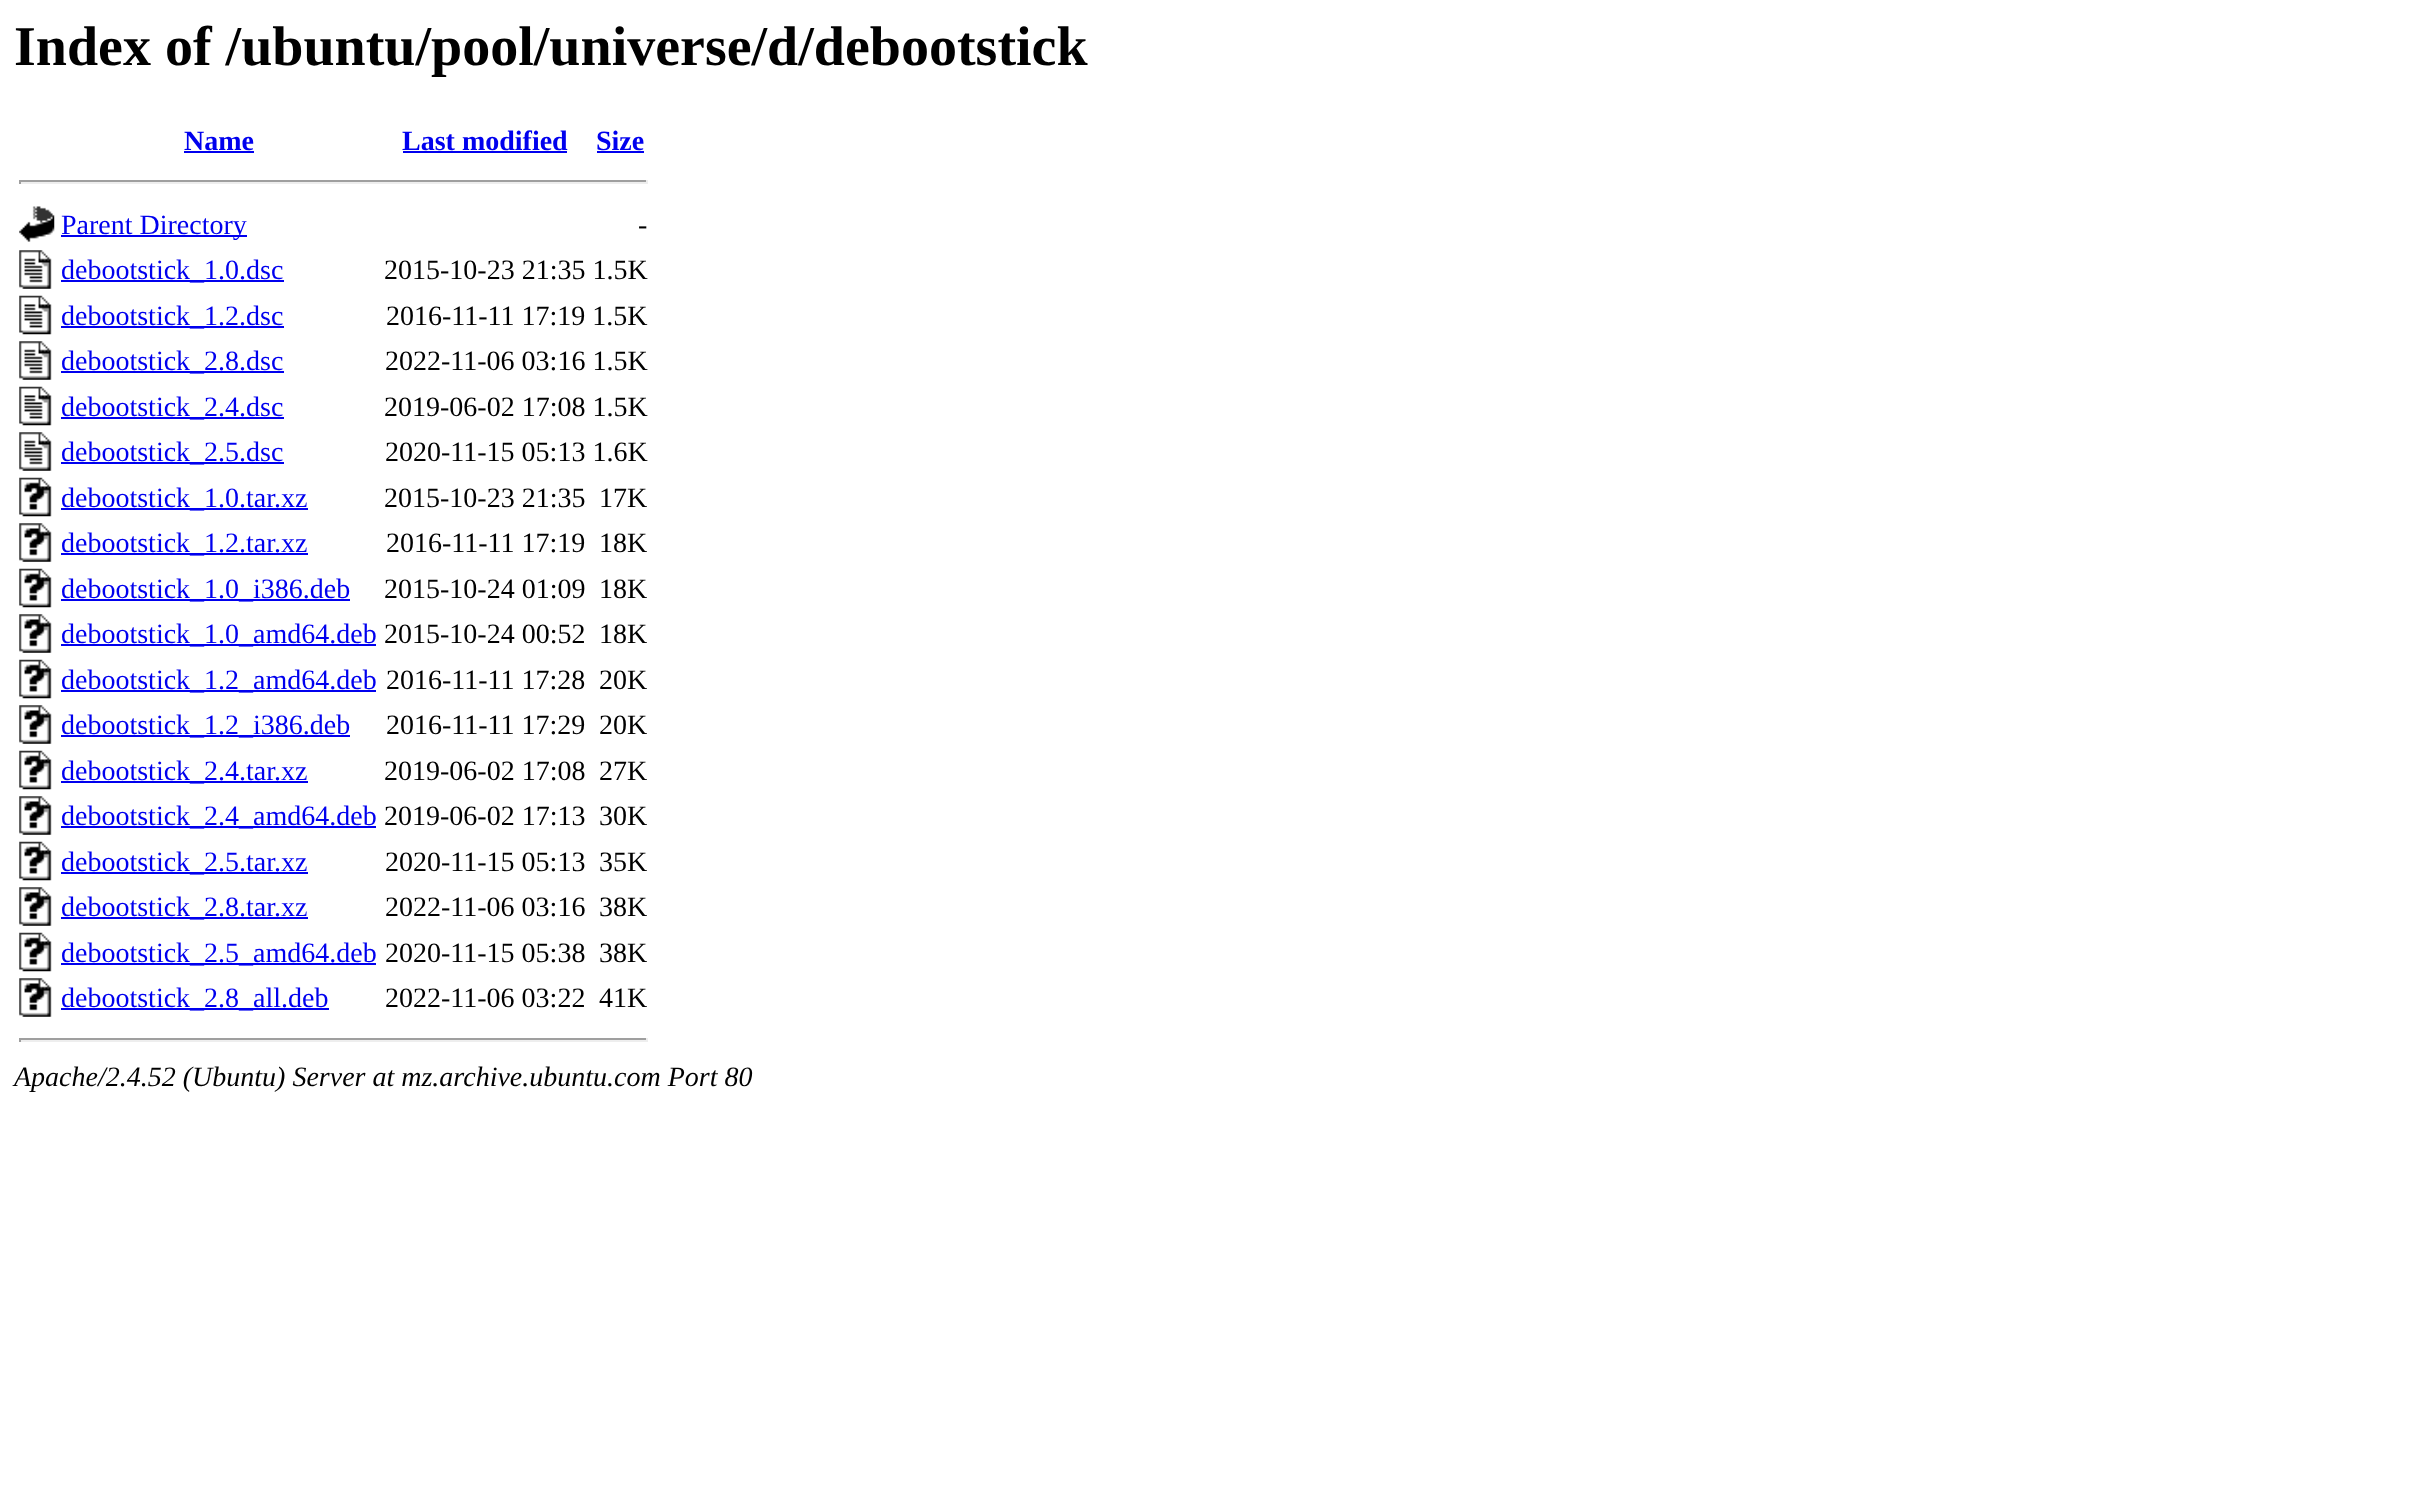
<!DOCTYPE html>
<meta charset="utf-8">
<style>body { margin: 0 } canvas { display: block }</style>
<canvas id="canvas" width="2416" height="1497"></canvas>
<script type="module">
  const canvas = document.getElementById("canvas");
  const ctx = canvas.getContext("2d");
  ctx.miterLimit = 4;
  ctx.fontKerning = "normal";
  async function loadImage(src) {
    const img = new Image();
    img.src = src;
    await img.decode();
    return img;
  }

  ctx.fillStyle = "#ffffff";
  ctx.fillRect(0, 0, 2416, 1497);
  ctx.font = "bold 56px Liberation Serif";
  ctx.fillStyle = "#000000";
  ctx.fillText("Index of /ubuntu/pool/universe/d/debootstick", 14, 65);
  ctx.font = "bold 28px Liberation Serif";
  ctx.fillStyle = "#0000ee";
  ctx.fillText("Name", 184, 150);
  ctx.fillRect(184, 151, 70, 2);
  ctx.fillText("Last modified", 402, 150);
  ctx.fillRect(403, 151, 164, 2);
  ctx.fillText("Size", 596, 150);
  ctx.fillRect(597, 151, 47, 2);
  ctx.fillStyle = "#9f9f9f";
  ctx.fillRect(19, 180, 629, 2);
  ctx.fillStyle = "#eeeeee";
  ctx.fillRect(646, 180, 2, 4);
  ctx.fillRect(19, 182, 629, 2);
  ctx.fillStyle = "#9f9f9f";
  ctx.fillRect(19, 180, 2, 4);
  ctx.drawImage(await loadImage("img1.png"), 19, 206, 36, 36);
  ctx.fillStyle = "#0000ee";
  ctx.fillRect(61, 235, 186, 2);
  ctx.font = "28px Liberation Serif";
  ctx.fillText("Parent Directory", 61, 234);
  ctx.fillStyle = "#000000";
  ctx.fillText("-", 638, 234);
  ctx.drawImage(await loadImage("img2.png"), 19, 250, 33, 39);
  ctx.fillStyle = "#0000ee";
  ctx.fillRect(61, 280, 223, 2);
  ctx.fillText("debootstick_1.0.dsc", 61, 279);
  ctx.fillStyle = "#000000";
  ctx.fillText("2015-10-23 21:35 1.5K", 384, 279);
  ctx.drawImage(await loadImage("img3.png"), 19, 295, 33, 40);
  ctx.fillStyle = "#0000ee";
  ctx.fillRect(61, 326, 223, 2);
  ctx.fillText("debootstick_1.2.dsc", 61, 325);
  ctx.fillStyle = "#000000";
  ctx.fillText("2016-11-11 17:19 1.5K", 386, 325);
  ctx.drawImage(await loadImage("img2.png"), 19, 341, 33, 39);
  ctx.fillStyle = "#0000ee";
  ctx.fillRect(61, 371, 223, 2);
  ctx.fillText("debootstick_2.8.dsc", 61, 370);
  ctx.fillStyle = "#000000";
  ctx.fillText("2022-11-06 03:16 1.5K", 385, 370);
  ctx.drawImage(await loadImage("img3.png"), 19, 386, 33, 40);
  ctx.fillStyle = "#0000ee";
  ctx.fillRect(61, 417, 223, 2);
  ctx.fillText("debootstick_2.4.dsc", 61, 416);
  ctx.fillStyle = "#000000";
  ctx.fillText("2019-06-02 17:08 1.5K", 384, 416);
  ctx.drawImage(await loadImage("img2.png"), 19, 432, 33, 39);
  ctx.fillStyle = "#0000ee";
  ctx.fillRect(61, 462, 223, 2);
  ctx.fillText("debootstick_2.5.dsc", 61, 461);
  ctx.fillStyle = "#000000";
  ctx.fillText("2020-11-15 05:13 1.6K", 385, 461);
  ctx.drawImage(await loadImage("img4.png"), 19, 477, 33, 40);
  ctx.fillStyle = "#0000ee";
  ctx.fillRect(61, 508, 247, 2);
  ctx.fillText("debootstick_1.0.tar.xz", 61, 507);
  ctx.fillStyle = "#000000";
  ctx.fillText("2015-10-23 21:35", 384, 507);
  ctx.fillText("17K", 599, 507);
  ctx.drawImage(await loadImage("img5.png"), 19, 523, 33, 39);
  ctx.fillStyle = "#0000ee";
  ctx.fillRect(61, 553, 247, 2);
  ctx.fillText("debootstick_1.2.tar.xz", 61, 552);
  ctx.fillStyle = "#000000";
  ctx.fillText("2016-11-11 17:19", 386, 552);
  ctx.fillText("18K", 599, 552);
  ctx.drawImage(await loadImage("img4.png"), 19, 568, 33, 40);
  ctx.fillStyle = "#0000ee";
  ctx.fillRect(61, 599, 289, 2);
  ctx.fillText("debootstick_1.0_i386.deb", 61, 598);
  ctx.fillStyle = "#000000";
  ctx.fillText("2015-10-24 01:09", 384, 598);
  ctx.fillText("18K", 599, 598);
  ctx.drawImage(await loadImage("img5.png"), 19, 614, 33, 39);
  ctx.fillStyle = "#0000ee";
  ctx.fillRect(61, 644, 315, 2);
  ctx.fillText("debootstick_1.0_amd64.deb", 61, 643);
  ctx.fillStyle = "#000000";
  ctx.fillText("2015-10-24 00:52", 384, 643);
  ctx.fillText("18K", 599, 643);
  ctx.drawImage(await loadImage("img4.png"), 19, 659, 33, 40);
  ctx.fillStyle = "#0000ee";
  ctx.fillRect(61, 690, 315, 2);
  ctx.fillText("debootstick_1.2_amd64.deb", 61, 689);
  ctx.fillStyle = "#000000";
  ctx.fillText("2016-11-11 17:28", 386, 689);
  ctx.fillText("20K", 599, 689);
  ctx.drawImage(await loadImage("img5.png"), 19, 705, 33, 39);
  ctx.fillStyle = "#0000ee";
  ctx.fillRect(61, 735, 289, 2);
  ctx.fillText("debootstick_1.2_i386.deb", 61, 734);
  ctx.fillStyle = "#000000";
  ctx.fillText("2016-11-11 17:29", 386, 734);
  ctx.fillText("20K", 599, 734);
  ctx.drawImage(await loadImage("img4.png"), 19, 750, 33, 40);
  ctx.fillStyle = "#0000ee";
  ctx.fillRect(61, 781, 247, 2);
  ctx.fillText("debootstick_2.4.tar.xz", 61, 780);
  ctx.fillStyle = "#000000";
  ctx.fillText("2019-06-02 17:08", 384, 780);
  ctx.fillText("27K", 599, 780);
  ctx.drawImage(await loadImage("img5.png"), 19, 796, 33, 39);
  ctx.fillStyle = "#0000ee";
  ctx.fillRect(61, 826, 315, 2);
  ctx.fillText("debootstick_2.4_amd64.deb", 61, 825);
  ctx.fillStyle = "#000000";
  ctx.fillText("2019-06-02 17:13", 384, 825);
  ctx.fillText("30K", 599, 825);
  ctx.drawImage(await loadImage("img4.png"), 19, 841, 33, 40);
  ctx.fillStyle = "#0000ee";
  ctx.fillRect(61, 872, 247, 2);
  ctx.fillText("debootstick_2.5.tar.xz", 61, 871);
  ctx.fillStyle = "#000000";
  ctx.fillText("2020-11-15 05:13", 385, 871);
  ctx.fillText("35K", 599, 871);
  ctx.drawImage(await loadImage("img5.png"), 19, 887, 33, 39);
  ctx.fillStyle = "#0000ee";
  ctx.fillRect(61, 917, 247, 2);
  ctx.fillText("debootstick_2.8.tar.xz", 61, 916);
  ctx.fillStyle = "#000000";
  ctx.fillText("2022-11-06 03:16", 385, 916);
  ctx.fillText("38K", 599, 916);
  ctx.drawImage(await loadImage("img4.png"), 19, 932, 33, 40);
  ctx.fillStyle = "#0000ee";
  ctx.fillRect(61, 963, 315, 2);
  ctx.fillText("debootstick_2.5_amd64.deb", 61, 962);
  ctx.fillStyle = "#000000";
  ctx.fillText("2020-11-15 05:38", 385, 962);
  ctx.fillText("38K", 599, 962);
  ctx.drawImage(await loadImage("img5.png"), 19, 978, 33, 39);
  ctx.fillStyle = "#0000ee";
  ctx.fillRect(61, 1008, 268, 2);
  ctx.fillText("debootstick_2.8_all.deb", 61, 1007);
  ctx.fillStyle = "#000000";
  ctx.fillText("2022-11-06 03:22", 385, 1007);
  ctx.fillText("41K", 599, 1007);
  ctx.fillStyle = "#9f9f9f";
  ctx.fillRect(19, 1038, 629, 2);
  ctx.fillStyle = "#eeeeee";
  ctx.fillRect(646, 1038, 2, 4);
  ctx.fillRect(19, 1040, 629, 2);
  ctx.fillStyle = "#9f9f9f";
  ctx.fillRect(19, 1038, 2, 4);
  ctx.font = "italic 28px Liberation Serif";
  ctx.fillStyle = "#000000";
  ctx.fillText("Apache/2.4.52 (Ubuntu) Server at mz.archive.ubuntu.com Port 80", 14, 1086);
</script>
